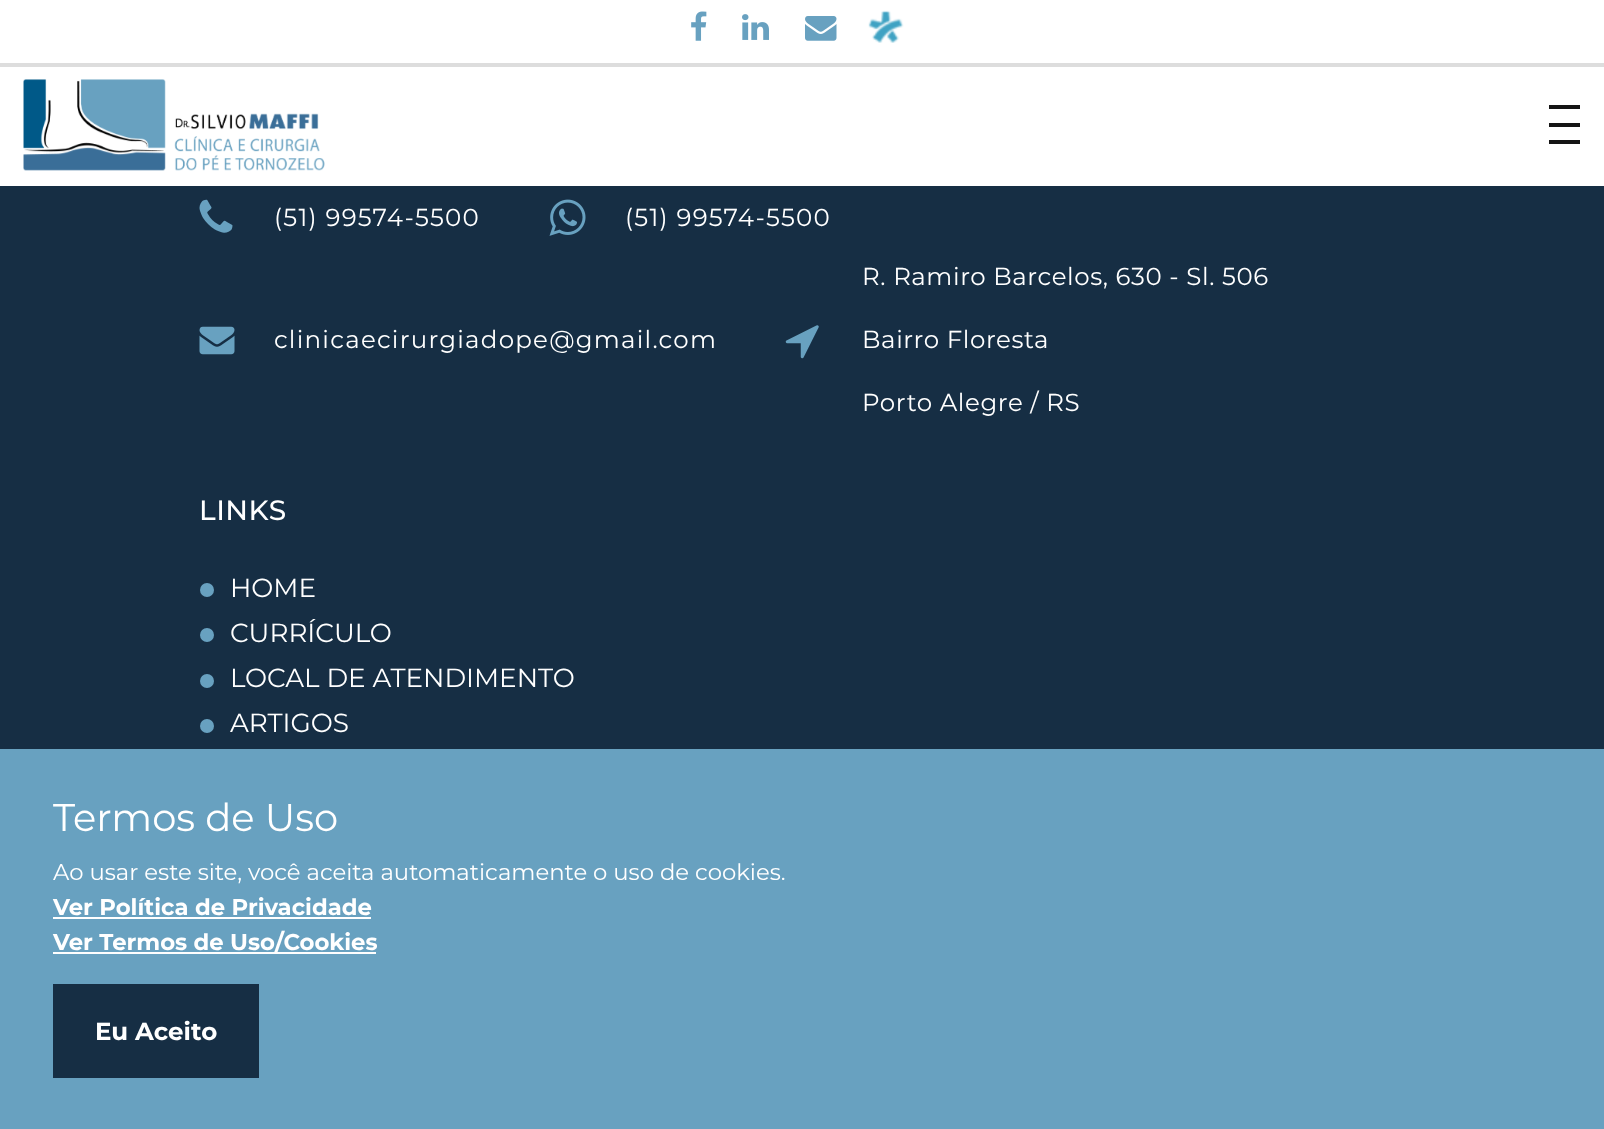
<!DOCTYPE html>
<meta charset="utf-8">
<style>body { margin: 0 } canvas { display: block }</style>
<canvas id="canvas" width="1604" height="1129"></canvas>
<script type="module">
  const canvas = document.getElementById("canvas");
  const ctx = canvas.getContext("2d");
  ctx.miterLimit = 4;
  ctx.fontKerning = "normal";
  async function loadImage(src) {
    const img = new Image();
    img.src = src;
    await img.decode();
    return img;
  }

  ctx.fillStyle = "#162e44";
  ctx.fillRect(0, 0, 1604, 1129);
  ctx.fillStyle = "#ffffff";
  ctx.fillRect(0, 0, 1604, 63);
  ctx.fillStyle = "#dddddd";
  ctx.fillRect(0, 63, 1604, 4);
  ctx.drawImage(await loadImage("img1.png"), 691, 11, 16, 30);
  ctx.drawImage(await loadImage("img2.png"), 742, 14, 27, 26);
  ctx.drawImage(await loadImage("img3.png"), 805, 16, 32, 25);
  ctx.drawImage(await loadImage("img4.png"), 868, 10, 36, 33);
  ctx.fillStyle = "#ffffff";
  ctx.fillRect(0, 67, 1604, 119);
  ctx.drawImage(await loadImage("img5.png"), 23, 79, 302, 92);
  ctx.fillStyle = "#151515";
  ctx.fillRect(1549, 123, 31, 4);
  ctx.fillRect(1549, 105, 31, 4);
  ctx.fillRect(1549, 140, 31, 4);
  ctx.drawImage(await loadImage("img6.png"), 199, 199, 34, 34);
  ctx.letterSpacing = "1.25px";
  ctx.font = "24.5px Montserrat";
  ctx.fillStyle = "#ffffff";
  ctx.fillText("(51) 99574-5500", 274, 226);
  ctx.drawImage(await loadImage("img7.png"), 549, 199, 37, 37);
  ctx.fillText("(51) 99574-5500", 625, 226);
  ctx.drawImage(await loadImage("img8.png"), 199, 326, 36, 29);
  ctx.fillText("clinicaecirurgiadope@gmail.com", 274, 348);
  ctx.drawImage(await loadImage("img9.png"), 785, 325, 34, 34);
  ctx.letterSpacing = "0.6px";
  ctx.fillText("R. Ramiro Barcelos, 630 - Sl. 506", 862, 285);
  ctx.fillText("Bairro Floresta", 862, 348);
  ctx.fillText("Porto Alegre / RS", 862, 411);
  ctx.letterSpacing = "0.5px";
  ctx.font = "500 28px Montserrat";
  ctx.fillText("LINKS", 199, 520);
  ctx.fillStyle = "#68a1c0";
  ctx.beginPath();
  ctx.arc(207, 590, 7, 0, Math.PI * 2);
  ctx.fill();
  ctx.letterSpacing = "0px";
  ctx.font = "26.25px Montserrat";
  ctx.fillStyle = "#ffffff";
  ctx.fillText("HOME", 230, 597);
  ctx.fillStyle = "#68a1c0";
  ctx.beginPath();
  ctx.arc(207, 635, 7, 0, Math.PI * 2);
  ctx.fill();
  ctx.fillStyle = "#ffffff";
  ctx.fillText("CURRÍCULO", 230, 642);
  ctx.fillStyle = "#68a1c0";
  ctx.beginPath();
  ctx.arc(207, 681, 7, 0, Math.PI * 2);
  ctx.fill();
  ctx.fillStyle = "#ffffff";
  ctx.fillText("LOCAL DE ATENDIMENTO", 230, 687);
  ctx.fillStyle = "#68a1c0";
  ctx.beginPath();
  ctx.arc(207, 726, 7, 0, Math.PI * 2);
  ctx.fill();
  ctx.fillStyle = "#ffffff";
  ctx.fillText("ARTIGOS", 230, 732);
  ctx.fillStyle = "#68a1c0";
  ctx.fillRect(0, 749, 1604, 380);
  ctx.font = "38.5px Montserrat";
  ctx.fillStyle = "#ffffff";
  ctx.fillText("Termos de Uso", 53, 831);
  ctx.font = "22.75px Montserrat";
  ctx.fillText("Ao usar este site, você aceita automaticamente o uso de cookies.", 53, 880);
  ctx.font = "bold 22.75px Montserrat";
  ctx.fillText("Ver Política de Privacidade", 53, 915);
  ctx.fillRect(53, 917, 318, 2);
  ctx.fillRect(53, 952, 323, 2);
  ctx.fillText("Ver Termos de Uso/Cookies", 53, 950);
  ctx.fillStyle = "#162e44";
  ctx.fillRect(53, 984, 206, 94);
  ctx.font = "bold 24.5px Montserrat";
  ctx.fillStyle = "#ffffff";
  ctx.fillText("Eu Aceito", 95, 1040);
</script>
